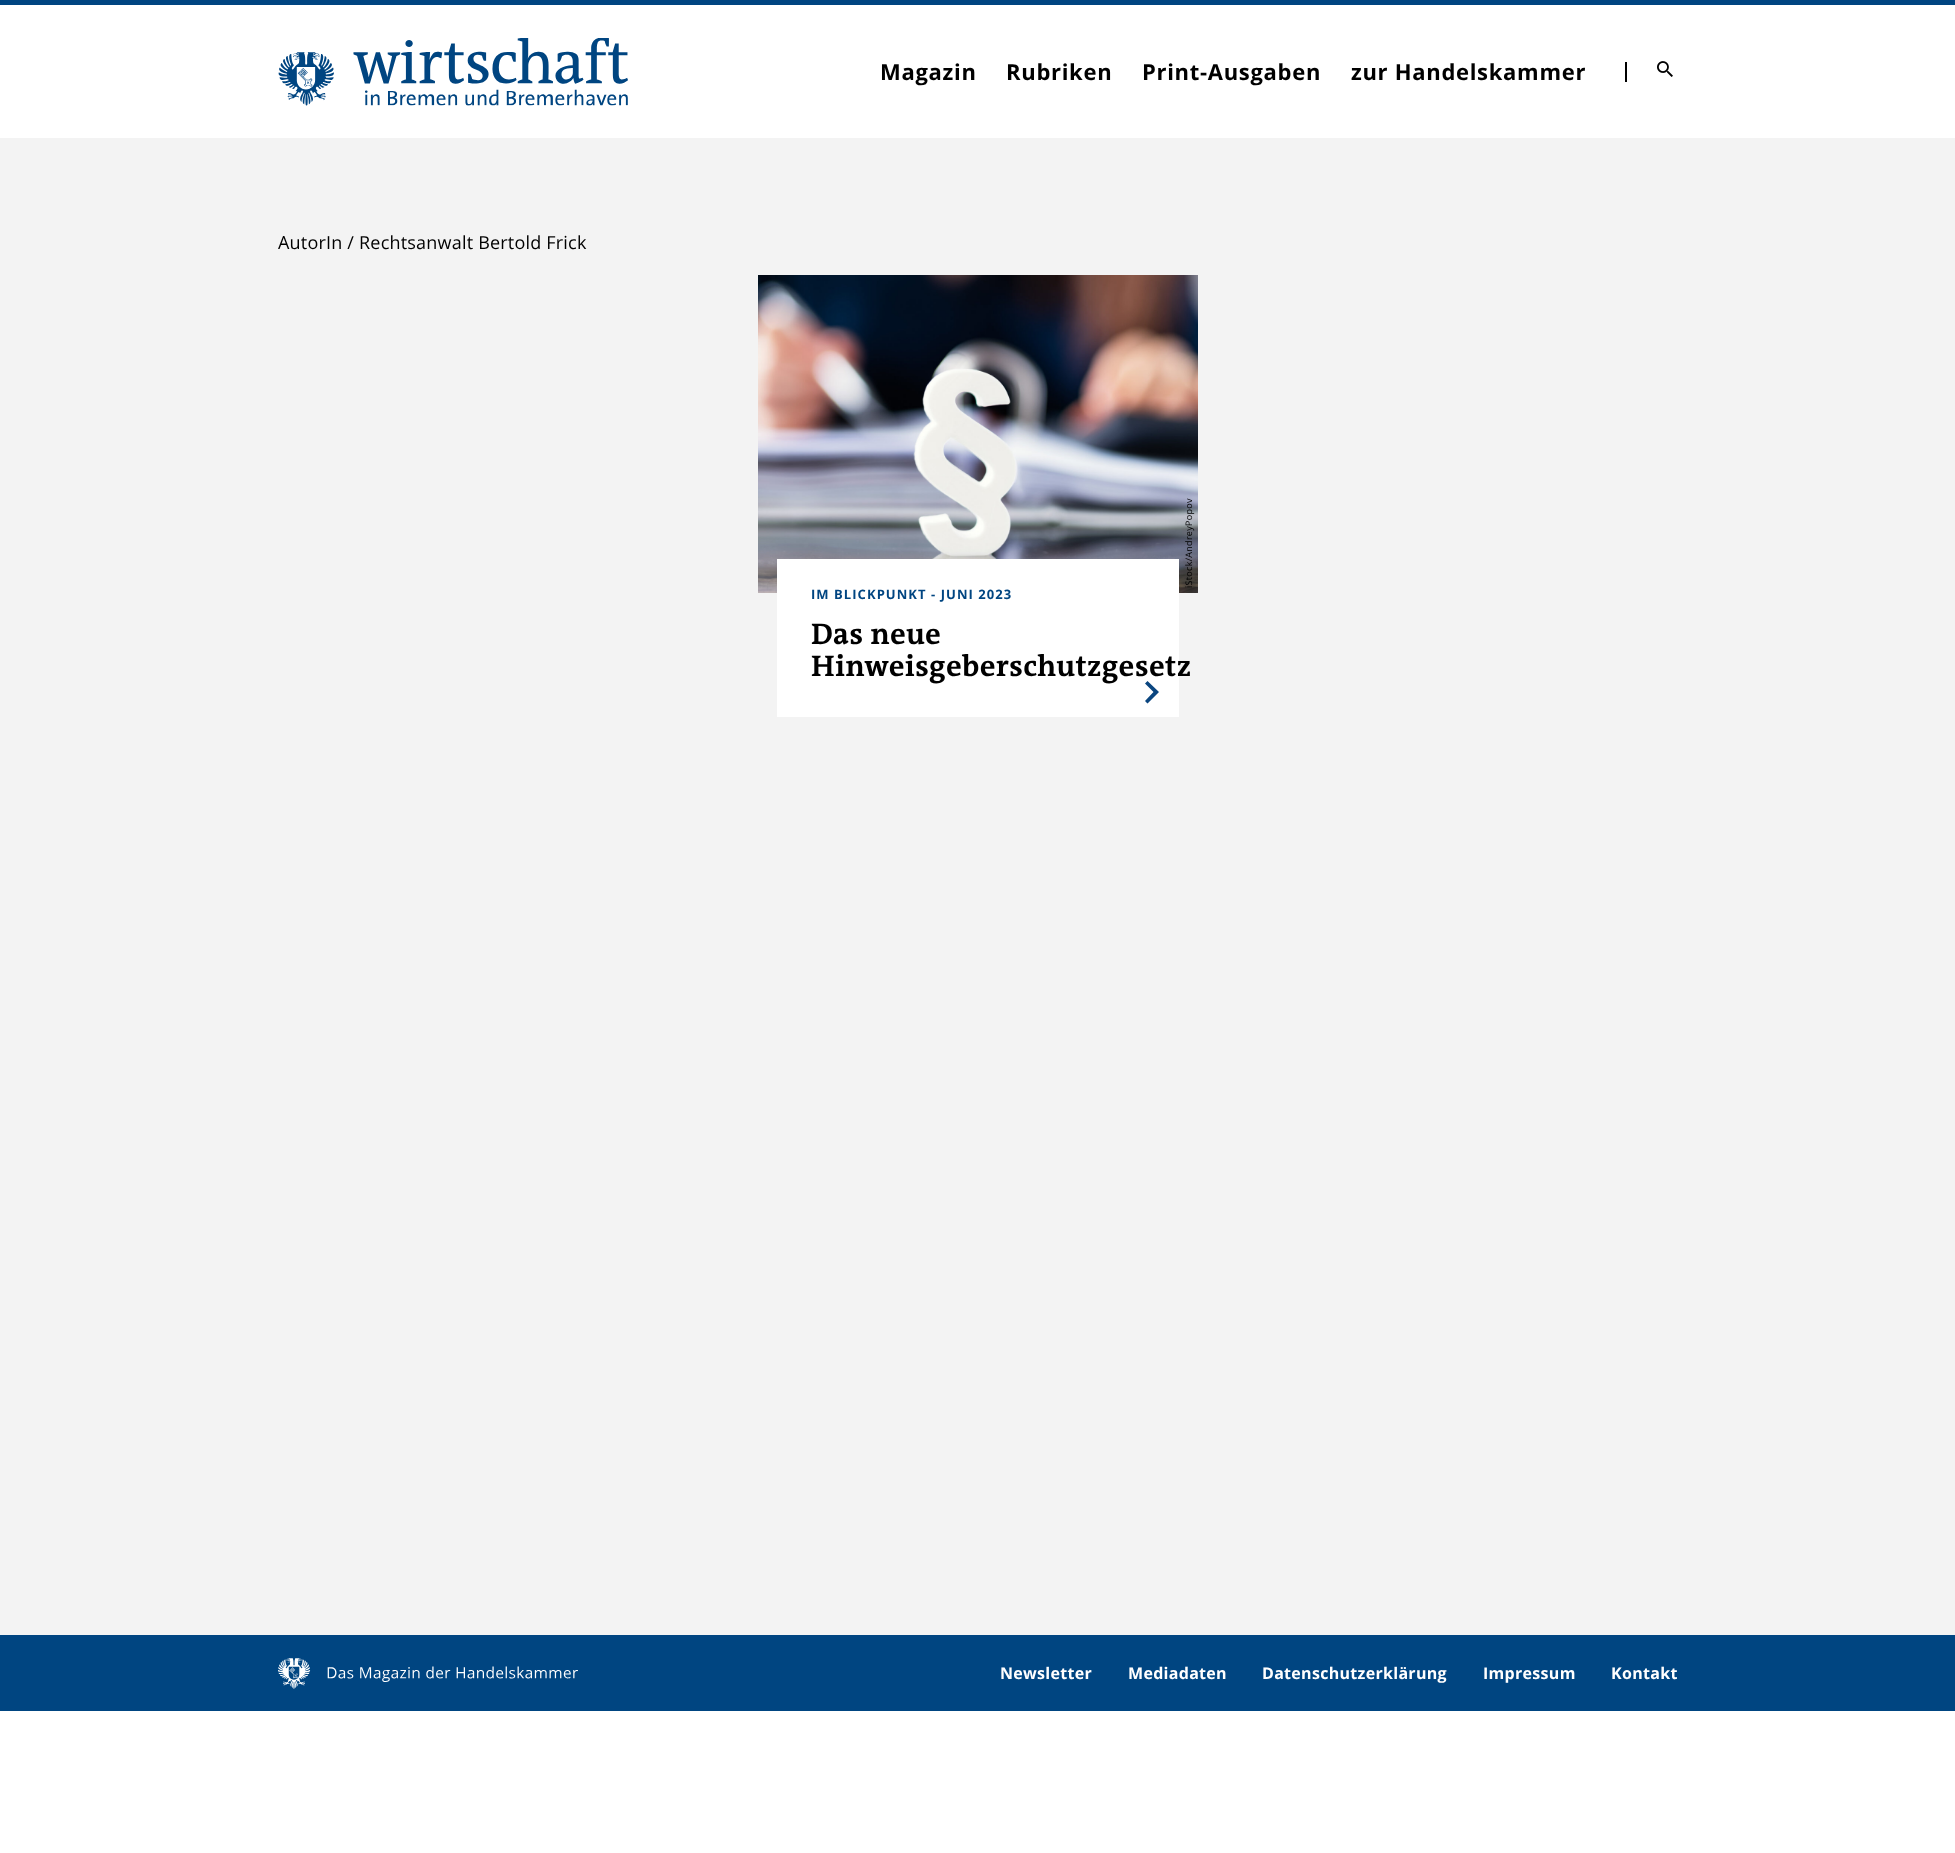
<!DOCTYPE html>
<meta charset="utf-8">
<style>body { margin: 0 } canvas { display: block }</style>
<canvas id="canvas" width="1955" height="1853"></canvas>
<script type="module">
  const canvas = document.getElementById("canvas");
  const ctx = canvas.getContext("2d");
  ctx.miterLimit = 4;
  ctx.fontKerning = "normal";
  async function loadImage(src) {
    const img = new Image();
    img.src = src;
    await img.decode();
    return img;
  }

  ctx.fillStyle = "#ffffff";
  ctx.fillRect(0, 0, 1955, 1853);
  ctx.fillStyle = "#f3f3f3";
  ctx.fillRect(0, 138, 1955, 1497);
  ctx.fillStyle = "#004581";
  ctx.fillRect(0, 0, 1955, 5);
  ctx.drawImage(await loadImage("img1.png"), 278, 38, 350, 68);
  ctx.letterSpacing = "0.7px";
  ctx.font = "bold 22px Open Sans";
  ctx.fillStyle = "#000000";
  ctx.fillText("Magazin", 880, 80);
  ctx.fillText("Rubriken", 1006, 80);
  ctx.fillText("Print-Ausgaben", 1142, 80);
  ctx.fillText("zur Handelskammer", 1351, 80);
  ctx.fillRect(1625, 62, 2, 20);
  ctx.drawImage(await loadImage("img2.png"), 1657, 61, 16, 16);
  ctx.letterSpacing = "0.2px";
  ctx.font = "18px Open Sans";
  ctx.fillText("AutorIn / Rechtsanwalt Bertold Frick", 278, 249);
  ctx.drawImage(await loadImage("img3.png"), 758, 275, 440, 318);
  ctx.letterSpacing = "0.3px";
  ctx.font = "9px Open Sans";
  ctx.save();
  ctx.translate(1192, 588);
  ctx.rotate(-90 * Math.PI / 180);
  ctx.fillText("iStock/AndreyPopov", 0, 0);
  ctx.restore();
  ctx.fillStyle = "#ffffff";
  ctx.fillRect(777, 559, 402, 158);
  ctx.letterSpacing = "1.05px";
  ctx.font = "bold 13px Open Sans";
  ctx.fillStyle = "#004581";
  ctx.fillText("IM BLICKPUNKT - JUNI 2023", 811, 599);
  ctx.letterSpacing = "0.3px";
  ctx.font = "bold 30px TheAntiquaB";
  ctx.fillStyle = "#000000";
  ctx.fillText("Das neue", 811, 644);
  ctx.fillText("Hinweisgeberschutzgesetz", 811, 676);
  ctx.fillStyle = "#0b4680";
  ctx.beginPath();
  ctx.moveTo(1145, 701);
  ctx.lineTo(1153.5, 692);
  ctx.lineTo(1145, 683.5);
  ctx.lineTo(1147.5, 681);
  ctx.lineTo(1159, 692);
  ctx.lineTo(1147.5, 703.5);
  ctx.closePath();
  ctx.fill();
  ctx.fillStyle = "#004581";
  ctx.fillRect(0, 1635, 1955, 76);
  ctx.drawImage(await loadImage("img4.png"), 278, 1658, 300, 31);
  ctx.font = "bold 16px Open Sans";
  ctx.fillStyle = "#ffffff";
  ctx.fillText("Newsletter", 1000, 1679);
  ctx.fillText("Mediadaten", 1128, 1679);
  ctx.fillText("Datenschutzerklärung", 1262, 1679);
  ctx.fillText("Impressum", 1483, 1679);
  ctx.fillText("Kontakt", 1611, 1679);
</script>
